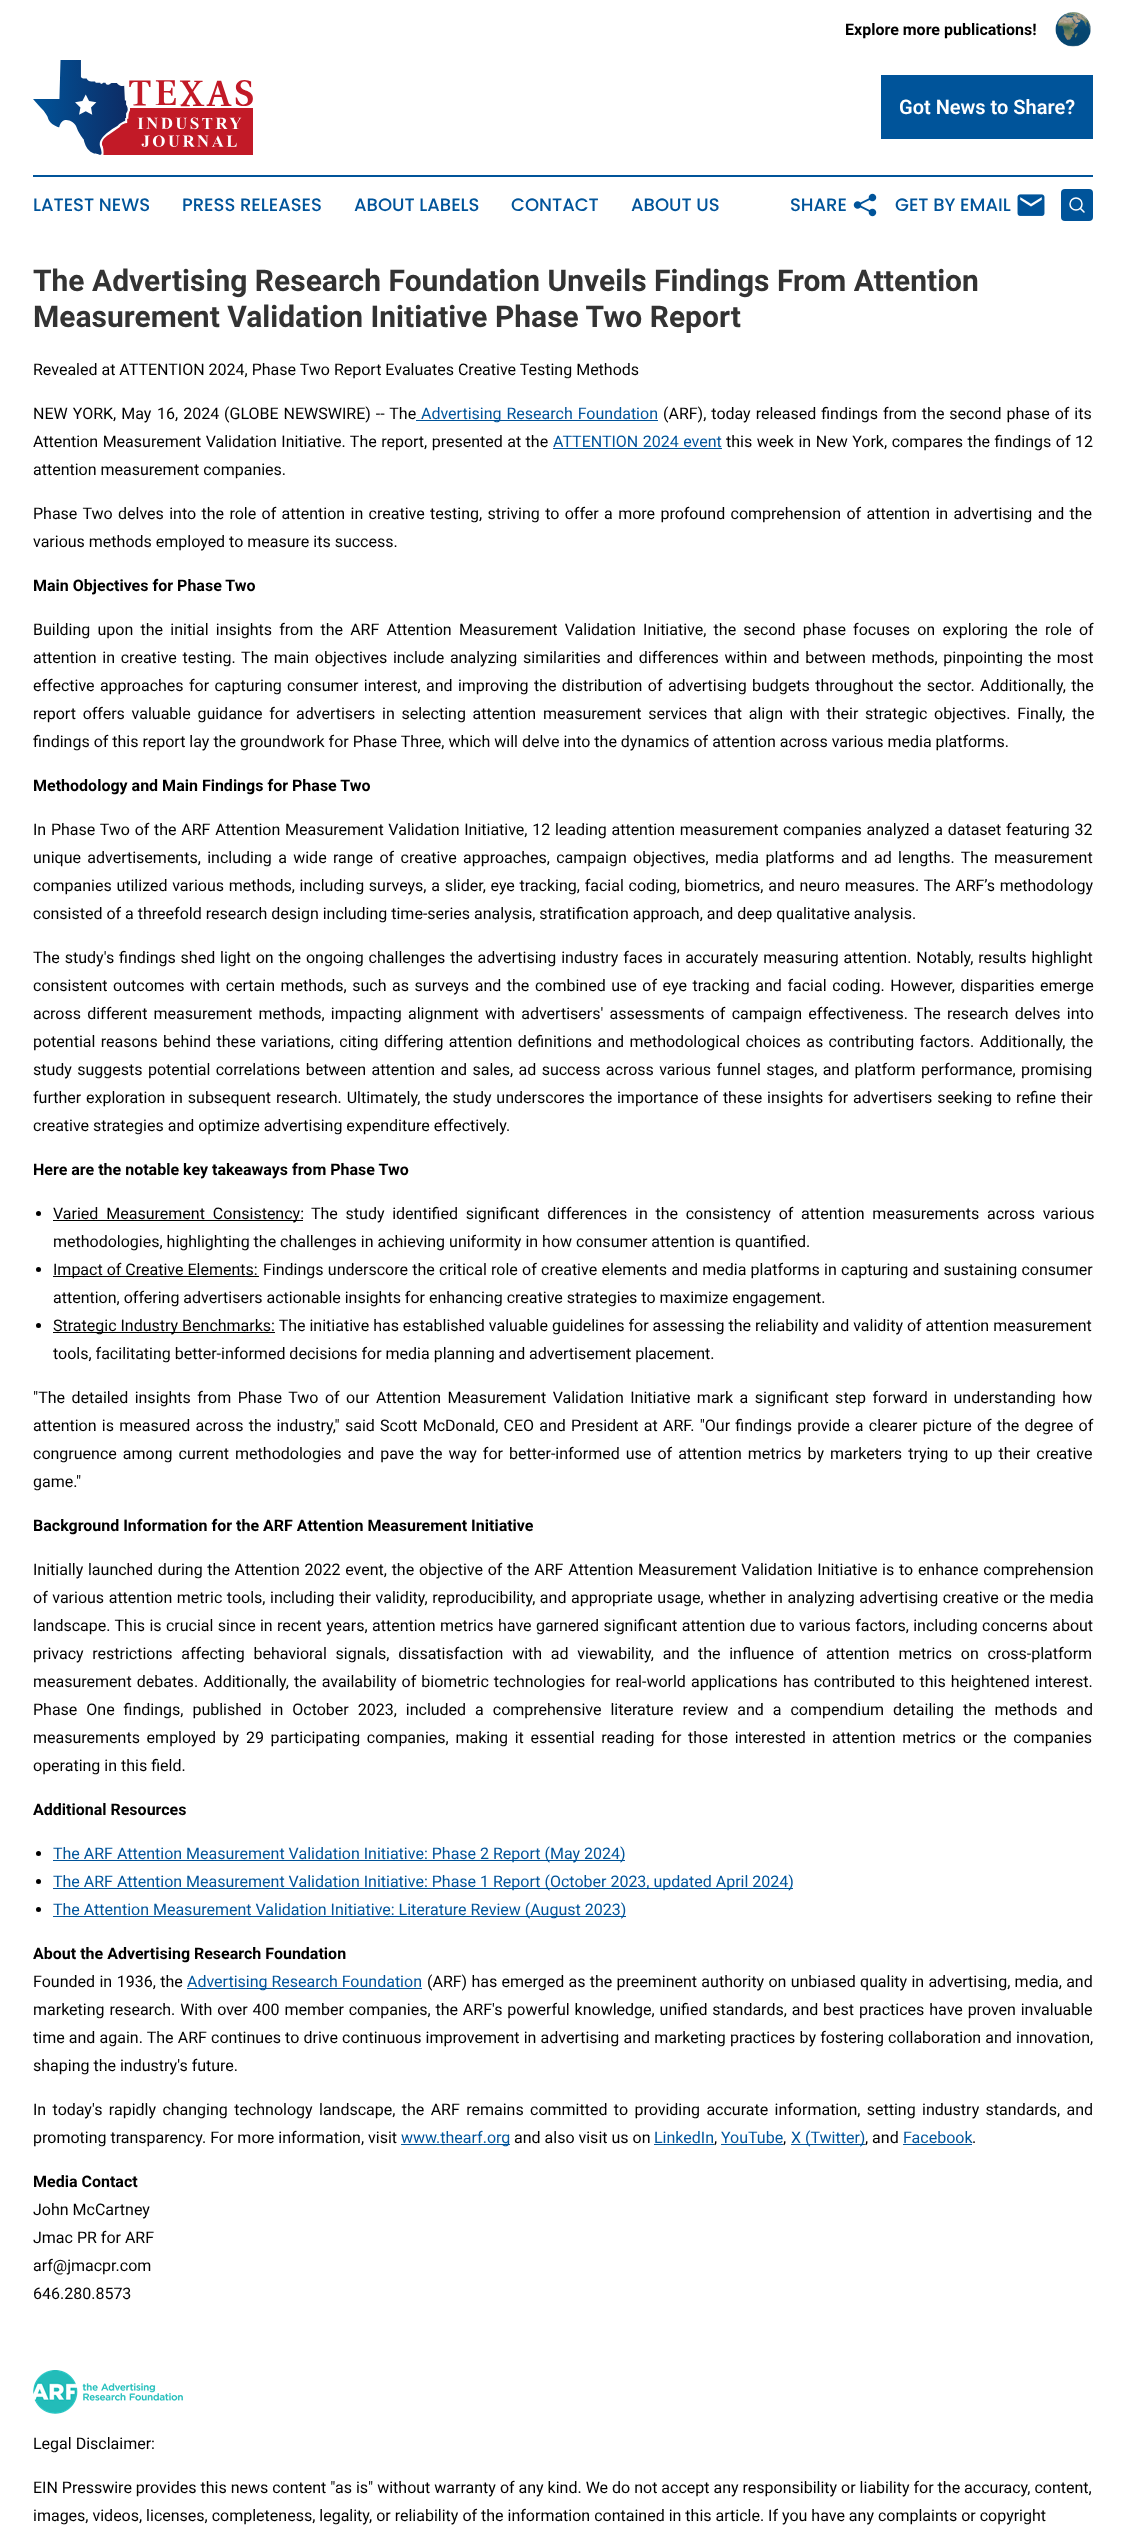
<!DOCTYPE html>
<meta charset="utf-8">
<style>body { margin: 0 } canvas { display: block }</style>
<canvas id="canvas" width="1126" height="2542"></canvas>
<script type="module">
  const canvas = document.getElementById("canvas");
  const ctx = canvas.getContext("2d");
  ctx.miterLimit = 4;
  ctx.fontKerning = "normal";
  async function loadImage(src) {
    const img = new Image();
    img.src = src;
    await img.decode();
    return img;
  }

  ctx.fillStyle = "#ffffff";
  ctx.fillRect(0, 0, 1126, 2542);
  ctx.font = "bold 16px Roboto";
  ctx.fillStyle = "#000000";
  ctx.fillText("Explore more publications!", 845, 35);
  ctx.drawImage(await loadImage("img1.png"), 1055, 12, 36, 35);
  ctx.drawImage(await loadImage("img2.png"), 33, 60, 220, 95);
  ctx.fillStyle = "#00549a";
  ctx.fillRect(881, 75, 212, 64);
  ctx.font = "600 20px Roboto";
  ctx.fillStyle = "#ffffff";
  ctx.fillText("Got News to Share?", 899, 114);
  ctx.fillStyle = "#00549a";
  ctx.fillRect(33, 175, 1060, 2);
  ctx.font = "500 18px Poppins";
  ctx.fillText("LATEST NEWS", 33, 211);
  ctx.fillText("PRESS RELEASES", 182, 211);
  ctx.fillText("ABOUT LABELS", 354, 211);
  ctx.fillText("CONTACT", 511, 211);
  ctx.fillText("ABOUT US", 631, 211);
  ctx.fillText("SHARE", 790, 211);
  ctx.drawImage(await loadImage("img3.png"), 853, 193, 24, 24);
  ctx.fillText("GET BY EMAIL", 895, 211);
  ctx.drawImage(await loadImage("img4.png"), 1017, 194, 28, 22);
  ctx.beginPath();
  ctx.roundRect(1061, 189, 32, 32, 4);
  ctx.fill();
  ctx.beginPath();
  ctx.arc(1076, 204, 6, 0, Math.PI * 2);
  ctx.strokeStyle = "#ffffff";
  ctx.lineWidth = 1.5;
  ctx.stroke();
  ctx.beginPath();
  ctx.moveTo(1084, 212);
  ctx.lineTo(1080.5, 208.5);
  ctx.lineCap = "round";
  ctx.lineJoin = "round";
  ctx.stroke();
  ctx.font = "bold 30px Roboto";
  ctx.fillStyle = "#333333";
  ctx.fillText("The Advertising Research Foundation Unveils Findings From Attention", 33, 291);
  ctx.fillText("Measurement Validation Initiative Phase Two Report", 33, 327);
  ctx.font = "16px Roboto";
  ctx.fillStyle = "#000000";
  ctx.fillText("Revealed at ATTENTION 2024, Phase Two Report Evaluates Creative Testing Methods", 33, 375);
  ctx.wordSpacing = "1.1px";
  ctx.fillText("NEW YORK, May", 33, 419);
  ctx.fillText("16, 2024", 157, 419);
  ctx.wordSpacing = "1px";
  ctx.fillText("(GLOBE NEWSWIRE) -- The", 224, 419);
  ctx.fillStyle = "#00549a";
  ctx.fillRect(416, 420, 242, 1);
  ctx.fillText("Advertising Research Foundation", 421, 419);
  ctx.fillStyle = "#000000";
  ctx.fillText("(ARF), today released findings from the second phase of its", 663, 419);
  ctx.wordSpacing = "0.5px";
  ctx.fillText("Attention Measurement Validation Initiative. The report, presented at the", 33, 447);
  ctx.fillStyle = "#00549a";
  ctx.fillText("ATTENTION 2024 event", 553, 447);
  ctx.fillRect(553, 448, 169, 1);
  ctx.wordSpacing = "0.6px";
  ctx.fillStyle = "#000000";
  ctx.fillText("this week in New York, compares the findings of 12", 726, 447);
  ctx.wordSpacing = "0px";
  ctx.fillText("attention measurement companies.", 33, 475);
  ctx.wordSpacing = "1.4px";
  ctx.fillText("Phase Two delves into the role of attention in creative testing, striving to offer a more profound comprehension of attention in advertising and the", 33, 519);
  ctx.wordSpacing = "0px";
  ctx.fillText("various methods employed to measure its success.", 33, 547);
  ctx.font = "bold 16px Roboto";
  ctx.fillText("Main Objectives for Phase Two", 33, 591);
  ctx.wordSpacing = "3.25px";
  ctx.font = "16px Roboto";
  ctx.fillText("Building upon the initial insights from the ARF Attention Measurement Validation Initiative, the second phase focuses on exploring the role of", 33, 635);
  ctx.wordSpacing = "1.75px";
  ctx.fillText("attention in creative testing. The main objectives include analyzing similarities and differences within and between methods, pinpointing the most", 33, 663);
  ctx.wordSpacing = "1.4px";
  ctx.fillText("effective approaches for capturing consumer interest, and improving the distribution of advertising budgets throughout the sector. Additionally, the", 33, 691);
  ctx.wordSpacing = "2.75px";
  ctx.fillText("report offers valuable guidance for advertisers in selecting attention measurement services that align with their strategic objectives. Finally, the", 33, 719);
  ctx.wordSpacing = "0px";
  ctx.fillText("findings of this report lay the groundwork for Phase Three, which will delve into the dynamics of attention across various media platforms.", 33, 747);
  ctx.font = "bold 16px Roboto";
  ctx.fillText("Methodology and Main Findings for Phase Two", 33, 791);
  ctx.wordSpacing = "0.75px";
  ctx.font = "16px Roboto";
  ctx.fillText("In Phase Two of the ARF Attention Measurement Validation Initiative, 12 leading attention measurement companies analyzed a dataset featuring 32", 33, 835);
  ctx.wordSpacing = "2.4px";
  ctx.fillText("unique advertisements, including a wide range of creative approaches, campaign objectives, media platforms and ad lengths. The measurement", 33, 863);
  ctx.wordSpacing = "0.75px";
  ctx.fillText("companies utilized various methods, including surveys, a slider, eye tracking, facial coding, biometrics, and neuro measures. The ARF’s methodology", 33, 891);
  ctx.wordSpacing = "0px";
  ctx.fillText("consisted of a threefold research design including time-series analysis, stratification approach, and deep qualitative analysis.", 33, 919);
  ctx.wordSpacing = "0.9px";
  ctx.fillText("The study's findings shed light on the ongoing challenges the advertising industry faces in accurately measuring attention. Notably, results highlight", 33, 963);
  ctx.wordSpacing = "1.6px";
  ctx.fillText("consistent outcomes with certain methods, such as surveys and the combined use of eye tracking and facial coding. However, disparities emerge", 33, 991);
  ctx.wordSpacing = "2.25px";
  ctx.fillText("across different measurement methods, impacting alignment with advertisers' assessments of campaign effectiveness. The research delves into", 33, 1019);
  ctx.wordSpacing = "1.4px";
  ctx.fillText("potential reasons behind these variations, citing differing attention definitions and methodological choices as contributing factors. Additionally, the", 33, 1047);
  ctx.fillText("study suggests potential correlations between attention and sales, ad success across various funnel stages, and platform performance, promising", 33, 1075);
  ctx.wordSpacing = "0.9px";
  ctx.fillText("further exploration in subsequent research. Ultimately, the study underscores the importance of these insights for advertisers seeking to refine their", 33, 1103);
  ctx.wordSpacing = "0px";
  ctx.fillText("creative strategies and optimize advertising expenditure effectively.", 33, 1131);
  ctx.font = "bold 16px Roboto";
  ctx.fillText("Here are the notable key takeaways from Phase Two", 33, 1175);
  ctx.beginPath();
  ctx.arc(38.5, 1213.5, 2.5, 0, Math.PI * 2);
  ctx.fill();
  ctx.fillRect(53, 1220, 250, 1);
  ctx.wordSpacing = "4px";
  ctx.font = "16px Roboto";
  ctx.fillText("Varied Measurement Consistency:", 53, 1219);
  ctx.wordSpacing = "3.75px";
  ctx.fillText("The study identified significant differences in the consistency of attention measurements across various", 311, 1219);
  ctx.wordSpacing = "0px";
  ctx.fillText("methodologies, highlighting the challenges in achieving uniformity in how consumer attention is quantified.", 53, 1247);
  ctx.beginPath();
  ctx.arc(38.5, 1269.5, 2.5, 0, Math.PI * 2);
  ctx.fill();
  ctx.fillRect(53, 1276, 206, 1);
  ctx.fillText("Impact of Creative Elements:", 53, 1275);
  ctx.wordSpacing = "0.3px";
  ctx.fillText("Findings underscore the critical role of creative elements and media platforms in capturing and sustaining consumer", 263, 1275);
  ctx.wordSpacing = "0px";
  ctx.fillText("attention, offering advertisers actionable insights for enhancing creative strategies to maximize engagement.", 53, 1303);
  ctx.beginPath();
  ctx.arc(38.5, 1325.5, 2.5, 0, Math.PI * 2);
  ctx.fill();
  ctx.fillRect(53, 1332, 222, 1);
  ctx.fillText("Strategic Industry Benchmarks: The initiative has established valuable guidelines for assessing the reliability and validity of attention measurement", 53, 1331);
  ctx.fillText("tools, facilitating better-informed decisions for media planning and advertisement placement.", 53, 1359);
  ctx.wordSpacing = "2.5px";
  ctx.fillText("\"The detailed insights from Phase Two of our Attention Measurement Validation Initiative mark a significant step forward in understanding how", 33, 1403);
  ctx.wordSpacing = "1.25px";
  ctx.fillText("attention is measured across the industry,\" said Scott McDonald, CEO and President at ARF. \"Our findings provide a clearer picture of the degree of", 33, 1431);
  ctx.wordSpacing = "2.1px";
  ctx.fillText("congruence among current methodologies and pave the way for better-informed use of attention metrics by marketers trying to up their creative", 33, 1459);
  ctx.wordSpacing = "0px";
  ctx.fillText("game.\"", 33, 1487);
  ctx.font = "bold 16px Roboto";
  ctx.fillText("Background Information for the ARF Attention Measurement Initiative", 33, 1531);
  ctx.wordSpacing = "0.75px";
  ctx.font = "16px Roboto";
  ctx.fillText("Initially launched during the Attention 2022 event, the objective of the ARF Attention Measurement Validation Initiative is to enhance comprehension", 33, 1575);
  ctx.wordSpacing = "0.6px";
  ctx.fillText("of various attention metric tools, including their validity, reproducibility, and appropriate usage, whether in analyzing advertising creative or the media", 33, 1603);
  ctx.wordSpacing = "0.4px";
  ctx.fillText("landscape. This is crucial since in recent years, attention metrics have garnered significant attention due to various factors, including concerns about", 33, 1631);
  ctx.wordSpacing = "4.75px";
  ctx.fillText("privacy restrictions affecting behavioral signals, dissatisfaction with ad viewability, and the influence of attention metrics on cross-platform", 33, 1659);
  ctx.wordSpacing = "1.1px";
  ctx.fillText("measurement debates. Additionally, the availability of biometric technologies for real-world applications has contributed to this heightened interest.", 33, 1687);
  ctx.wordSpacing = "5px";
  ctx.fillText("Phase One findings, published in October 2023, included a comprehensive literature review and a compendium detailing the methods and", 33, 1715);
  ctx.wordSpacing = "2.75px";
  ctx.fillText("measurements employed by 29 participating companies, making it essential reading for those interested in attention metrics or the companies", 33, 1743);
  ctx.wordSpacing = "0px";
  ctx.fillText("operating in this field.", 33, 1771);
  ctx.font = "bold 16px Roboto";
  ctx.fillText("Additional Resources", 33, 1815);
  ctx.beginPath();
  ctx.arc(38.5, 1853.5, 2.5, 0, Math.PI * 2);
  ctx.fill();
  ctx.fillStyle = "#00549a";
  ctx.fillRect(53, 1860, 572, 1);
  ctx.font = "16px Roboto";
  ctx.fillText("The ARF Attention Measurement Validation Initiative: Phase 2 Report (May 2024)", 53, 1859);
  ctx.fillStyle = "#000000";
  ctx.beginPath();
  ctx.arc(38.5, 1881.5, 2.5, 0, Math.PI * 2);
  ctx.fill();
  ctx.fillStyle = "#00549a";
  ctx.fillRect(53, 1888, 740, 1);
  ctx.fillText("The ARF Attention Measurement Validation Initiative: Phase 1 Report (October 2023, updated April 2024)", 53, 1887);
  ctx.fillStyle = "#000000";
  ctx.beginPath();
  ctx.arc(38.5, 1909.5, 2.5, 0, Math.PI * 2);
  ctx.fill();
  ctx.fillStyle = "#00549a";
  ctx.fillRect(53, 1916, 573, 1);
  ctx.fillText("The Attention Measurement Validation Initiative: Literature Review (August 2023)", 53, 1915);
  ctx.font = "bold 16px Roboto";
  ctx.fillStyle = "#000000";
  ctx.fillText("About the Advertising Research Foundation", 33, 1959);
  ctx.wordSpacing = "0.5px";
  ctx.font = "16px Roboto";
  ctx.fillText("Founded in 1936, the", 33, 1987);
  ctx.fillStyle = "#00549a";
  ctx.fillRect(187, 1988, 235, 1);
  ctx.wordSpacing = "0px";
  ctx.fillText("Advertising Research Foundation", 187, 1987);
  ctx.wordSpacing = "0.3px";
  ctx.fillStyle = "#000000";
  ctx.fillText("(ARF) has emerged as the preeminent authority on unbiased quality in advertising, media, and", 427, 1987);
  ctx.wordSpacing = "0.9px";
  ctx.fillText("marketing research. With over 400 member companies, the ARF's powerful knowledge, unified standards, and best practices have proven invaluable", 33, 2015);
  ctx.wordSpacing = "0.2px";
  ctx.fillText("time and again. The ARF continues to drive continuous improvement in advertising and marketing practices by fostering collaboration and innovation,", 33, 2043);
  ctx.wordSpacing = "0px";
  ctx.fillText("shaping the industry's future.", 33, 2071);
  ctx.wordSpacing = "2.4px";
  ctx.fillText("In today's rapidly changing technology landscape, the ARF remains committed to providing accurate information, setting industry standards, and", 33, 2115);
  ctx.wordSpacing = "0px";
  ctx.fillText("promoting transparency. For more information, visit", 33, 2143);
  ctx.fillStyle = "#00549a";
  ctx.fillRect(401, 2144, 109, 1);
  ctx.fillText("www.thearf.org", 401, 2143);
  ctx.fillStyle = "#000000";
  ctx.fillText("and also visit us on", 514, 2143);
  ctx.fillStyle = "#00549a";
  ctx.fillText("LinkedIn", 654, 2143);
  ctx.fillRect(654, 2144, 60, 1);
  ctx.fillStyle = "#000000";
  ctx.fillText(",", 714, 2143);
  ctx.fillStyle = "#00549a";
  ctx.fillText("YouTube", 721, 2143);
  ctx.fillRect(721, 2144, 62, 1);
  ctx.fillStyle = "#000000";
  ctx.fillText(",", 783, 2143);
  ctx.fillStyle = "#00549a";
  ctx.fillRect(791, 2144, 74, 1);
  ctx.fillText("X (Twitter)", 791, 2143);
  ctx.fillStyle = "#000000";
  ctx.fillText(", and", 865, 2143);
  ctx.fillStyle = "#00549a";
  ctx.fillText("Facebook", 903, 2143);
  ctx.fillRect(903, 2144, 69, 1);
  ctx.fillStyle = "#000000";
  ctx.fillText(".", 972, 2143);
  ctx.font = "bold 16px Roboto";
  ctx.fillText("Media Contact", 33, 2187);
  ctx.font = "16px Roboto";
  ctx.fillText("John McCartney", 33, 2215);
  ctx.fillText("Jmac PR for ARF", 33, 2243);
  ctx.fillText("arf@jmacpr.com", 33, 2271);
  ctx.fillText("646.280.8573", 33, 2299);
  ctx.drawImage(await loadImage("img5.png"), 33, 2370, 150, 44);
  ctx.fillText("Legal Disclaimer:", 33, 2449);
  ctx.fillText("EIN Presswire provides this news content \"as is\" without warranty of any kind. We do not accept any responsibility or liability for the accuracy, content,", 33, 2493);
  ctx.fillText("images, videos, licenses, completeness, legality, or reliability of the information contained in this article. If you have any complaints or copyright", 33, 2521);
</script>
